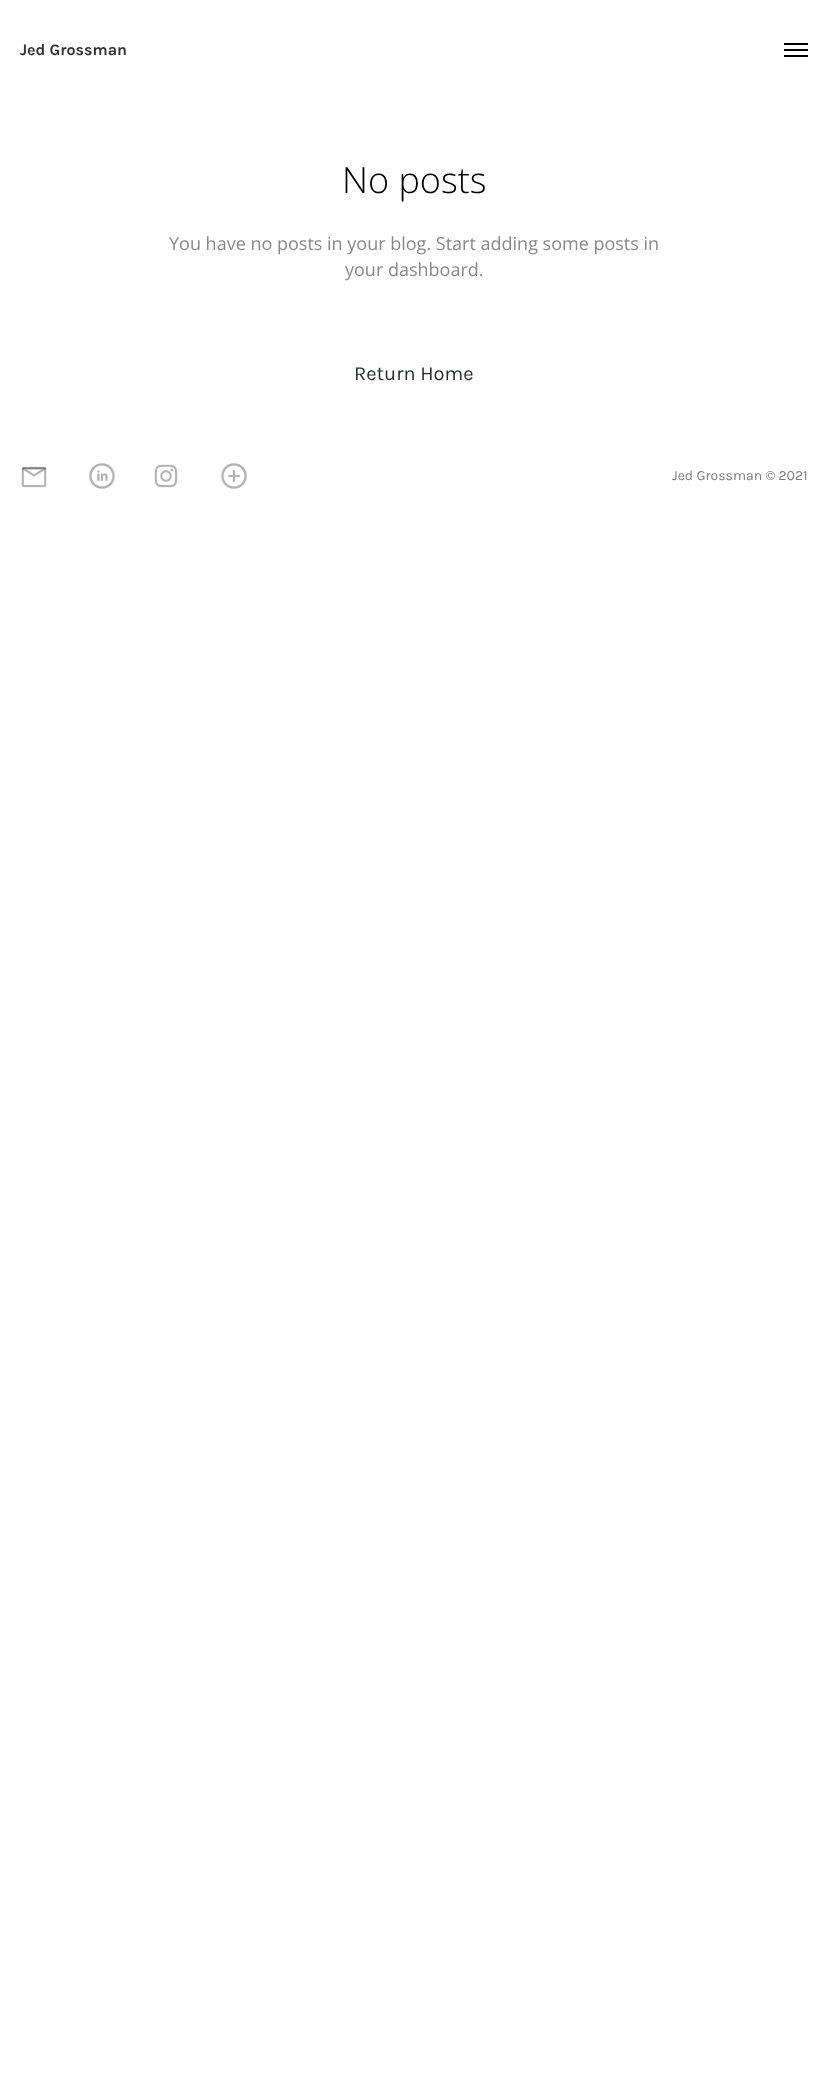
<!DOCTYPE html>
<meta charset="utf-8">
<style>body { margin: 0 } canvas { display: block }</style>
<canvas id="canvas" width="828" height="2092"></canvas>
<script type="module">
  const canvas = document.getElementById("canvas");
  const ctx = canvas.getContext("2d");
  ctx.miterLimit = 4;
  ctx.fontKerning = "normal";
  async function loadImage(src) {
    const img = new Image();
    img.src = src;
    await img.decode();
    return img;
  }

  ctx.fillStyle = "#ffffff";
  ctx.fillRect(0, 0, 828, 2092);
  ctx.font = "bold 16px Karla";
  ctx.fillStyle = "#333333";
  ctx.fillText("Jed Grossman", 20, 55);
  ctx.fillStyle = "#000000";
  ctx.fillRect(784, 49, 24, 2);
  ctx.fillRect(784, 43, 24, 2);
  ctx.fillRect(784, 55, 24, 2);
  ctx.font = "300 36px Open Sans";
  ctx.fillText("No posts", 342, 193);
  ctx.font = "18px Open Sans";
  ctx.fillStyle = "#888888";
  ctx.fillText("You have no posts in your blog. Start adding some posts in", 169, 250);
  ctx.fillText("your dashboard.", 345, 276);
  ctx.font = "20px Karla";
  ctx.fillStyle = "#292d2a";
  ctx.fillText("Return Home", 354, 380);
  ctx.drawImage(await loadImage("img1.png"), 21, 466, 26, 22);
  ctx.drawImage(await loadImage("img2.png"), 89, 463, 26, 26);
  ctx.drawImage(await loadImage("img3.png"), 154, 464, 24, 24);
  ctx.drawImage(await loadImage("img4.png"), 221, 463, 26, 26);
  ctx.font = "14px Karla";
  ctx.fillStyle = "#797a7c";
  ctx.fillText("Jed Grossman © 2021", 672, 480);
</script>
